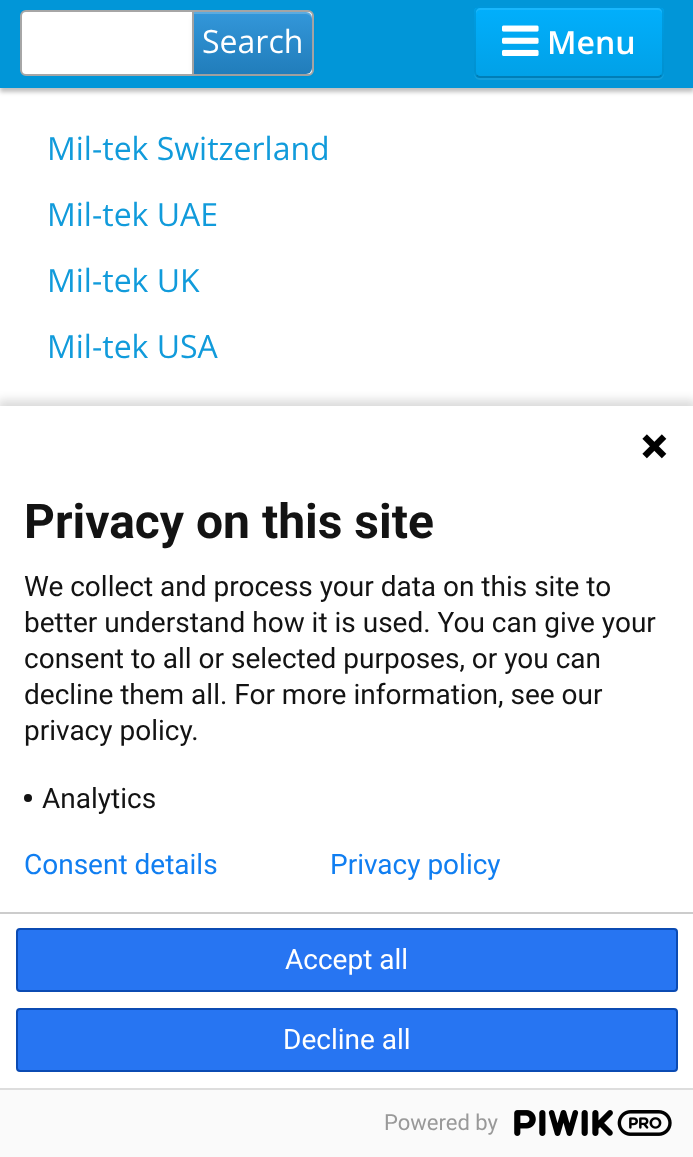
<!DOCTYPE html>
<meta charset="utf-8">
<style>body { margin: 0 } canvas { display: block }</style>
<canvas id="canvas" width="693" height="1157"></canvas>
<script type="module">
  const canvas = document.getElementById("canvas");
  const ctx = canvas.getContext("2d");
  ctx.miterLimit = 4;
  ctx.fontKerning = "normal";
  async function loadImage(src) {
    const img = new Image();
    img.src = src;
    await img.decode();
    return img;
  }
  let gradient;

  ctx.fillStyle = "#ffffff";
  ctx.fillRect(0, 0, 693, 1157);
  ctx.fillStyle = "rgba(0, 0, 0, 0.25)";
  ctx.filter = "blur(2px)";
  ctx.beginPath();
  ctx.rect(0, 4, 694, 88);
  ctx.fill();
  ctx.filter = "none";
  ctx.fillStyle = "#0196d8";
  ctx.fillRect(0, 0, 693, 88);
  ctx.fillStyle = "#ffffff";
  ctx.beginPath();
  ctx.roundRect(21, 11, 292, 64, 5);
  ctx.fill();
  ctx.strokeStyle = "#a6a6a6";
  ctx.lineWidth = 2;
  ctx.stroke();
  ctx.fillStyle = "rgba(0, 0, 0, 0.05)";
  ctx.filter = "blur(2px)";
  ctx.beginPath();
  ctx.roundRect(192, 14, 120, 62, 6);
  ctx.fill();
  ctx.filter = "none";
  gradient = ctx.createLinearGradient(253, 12, 253, 74);
  gradient.addColorStop(0, "#3397da");
  gradient.addColorStop(1, "#217dbb");
  ctx.fillStyle = gradient;
  ctx.beginPath();
  ctx.roundRect(192, 12, 120, 62, [0, 6, 6, 0]);
  ctx.fill();
  ctx.fillStyle = "rgba(255, 255, 255, 0.2)";
  ctx.beginPath();
  ctx.moveTo(194, 14);
  ctx.lineTo(306, 14);
  ctx.bezierCurveTo(309, 14, 312, 17, 312, 20);
  ctx.lineTo(312, 18);
  ctx.bezierCurveTo(312, 15, 309, 12, 306, 12);
  ctx.lineTo(194, 12);
  ctx.closePath();
  ctx.fill();
  ctx.fillStyle = "#a2a2a2";
  ctx.fillRect(192, 12, 2, 62);
  ctx.font = "32px Open Sans";
  ctx.fillStyle = "#ffffff";
  ctx.fillText("Search", 202, 53);
  ctx.fillStyle = "#149edb";
  ctx.beginPath();
  ctx.moveTo(474, 72);
  ctx.lineTo(474, 74);
  ctx.bezierCurveTo(474, 77, 477, 80, 480, 80);
  ctx.lineTo(658, 80);
  ctx.bezierCurveTo(661, 80, 664, 77, 664, 74);
  ctx.lineTo(664, 72);
  ctx.bezierCurveTo(664, 75, 661, 78, 658, 78);
  ctx.lineTo(480, 78);
  ctx.bezierCurveTo(477, 78, 474, 75, 474, 72);
  ctx.closePath();
  ctx.fill();
  ctx.fillStyle = "#01a9f4";
  ctx.beginPath();
  ctx.roundRect(474, 6, 190, 72, 6);
  ctx.fill();
  ctx.save();
  ctx.beginPath();
  ctx.roundRect(474, 6, 190, 72, 6);
  ctx.clip();
  gradient = ctx.createLinearGradient(569, 8, 569, 76);
  gradient.addColorStop(0, "#01affc");
  gradient.addColorStop(1, "#01a1e7");
  ctx.fillStyle = gradient;
  ctx.fillRect(474, 8, 190, 68);
  ctx.restore();
  ctx.fillStyle = "#1ab7fc";
  ctx.beginPath();
  ctx.moveTo(480, 10);
  ctx.lineTo(658, 10);
  ctx.bezierCurveTo(660, 10, 662, 12, 662, 14);
  ctx.lineTo(662, 12);
  ctx.bezierCurveTo(662, 10, 660, 8, 658, 8);
  ctx.lineTo(480, 8);
  ctx.bezierCurveTo(478, 8, 476, 10, 476, 12);
  ctx.lineTo(476, 14);
  ctx.bezierCurveTo(476, 12, 478, 10, 480, 10);
  ctx.closePath();
  ctx.fill();
  ctx.beginPath();
  ctx.moveTo(661.5, 75.5);
  ctx.bezierCurveTo(660.5, 76.5, 659.5, 77, 658, 77);
  ctx.lineTo(480, 77);
  ctx.bezierCurveTo(478.5, 77, 477.5, 76.5, 476.5, 75.5);
  ctx.strokeStyle = "rgba(0, 0, 0, 0.25)";
  ctx.stroke();
  ctx.beginPath();
  ctx.moveTo(476.5, 75.5);
  ctx.bezierCurveTo(475.5, 74.5, 475, 73.5, 475, 72);
  ctx.lineTo(475, 12);
  ctx.bezierCurveTo(475, 10.5, 475.5, 9.5, 476.5, 8.5);
  ctx.bezierCurveTo(477.5, 7.5, 478.5, 7, 480, 7);
  ctx.lineTo(658, 7);
  ctx.bezierCurveTo(659.5, 7, 660.5, 7.5, 661.5, 8.5);
  ctx.bezierCurveTo(662.5, 9.5, 663, 10.5, 663, 12);
  ctx.lineTo(663, 72);
  ctx.bezierCurveTo(663, 73.5, 662.5, 74.5, 661.5, 75.5);
  ctx.strokeStyle = "rgba(0, 0, 0, 0.1)";
  ctx.stroke();
  ctx.drawImage(await loadImage("img1.png"), 502, 25, 37, 31);
  ctx.font = "600 32px Open Sans";
  ctx.fillStyle = "#ffffff";
  ctx.fillText("Menu", 547, 54);
  ctx.font = "32px Open Sans";
  ctx.fillStyle = "#119bdb";
  ctx.fillText("Mil-tek Switzerland", 47, 160);
  ctx.fillText("Mil-tek UAE", 47, 226);
  ctx.fillText("Mil-tek UK", 47, 292);
  ctx.fillText("Mil-tek USA", 47, 358);
  ctx.fillStyle = "rgba(0, 0, 0, 0.14)";
  ctx.filter = "blur(5px)";
  ctx.beginPath();
  ctx.rect(-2, 400, 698, 756);
  ctx.fill();
  ctx.filter = "none";
  ctx.fillStyle = "#ffffff";
  ctx.fillRect(0, 406, 693, 682);
  ctx.drawImage(await loadImage("img2.png"), 642, 434, 25, 25);
  ctx.font = "bold 48px Roboto";
  ctx.fillStyle = "#131313";
  ctx.fillText("Privacy on this site", 24, 538);
  ctx.font = "28px Roboto";
  ctx.fillText("We collect and process your data on this site to", 24, 596);
  ctx.fillText("better understand how it is used. You can give your", 24, 632);
  ctx.fillText("consent to all or selected purposes, or you can", 24, 668);
  ctx.fillText("decline them all. For more information, see our", 24, 704);
  ctx.fillText("privacy policy.", 24, 740);
  ctx.beginPath();
  ctx.arc(28, 798, 4, 0, Math.PI * 2);
  ctx.fill();
  ctx.fillText("Analytics", 42, 808);
  ctx.fillStyle = "#cccccc";
  ctx.fillRect(0, 912, 693, 2);
  ctx.fillStyle = "#2775f2";
  ctx.beginPath();
  ctx.roundRect(17, 929, 660, 62, 3);
  ctx.fill();
  ctx.strokeStyle = "#0b4bb3";
  ctx.stroke();
  ctx.fillStyle = "#ffffff";
  ctx.fillText("Accept all", 285, 969);
  ctx.fillStyle = "#2775f2";
  ctx.beginPath();
  ctx.roundRect(17, 1009, 660, 62, 3);
  ctx.fill();
  ctx.stroke();
  ctx.fillStyle = "#ffffff";
  ctx.fillText("Decline all", 283, 1049);
  ctx.fillStyle = "#107ef1";
  ctx.fillText("Consent details", 24, 874);
  ctx.fillText("Privacy policy", 330, 874);
  ctx.fillStyle = "#fafafa";
  ctx.fillRect(0, 1090, 693, 67);
  ctx.fillStyle = "#dddddd";
  ctx.fillRect(0, 1088, 693, 2);
  ctx.font = "22px Roboto";
  ctx.fillStyle = "#999999";
  ctx.fillText("Powered by", 384, 1130);
  ctx.drawImage(await loadImage("img3.png"), 514, 1110, 158, 26);
</script>
